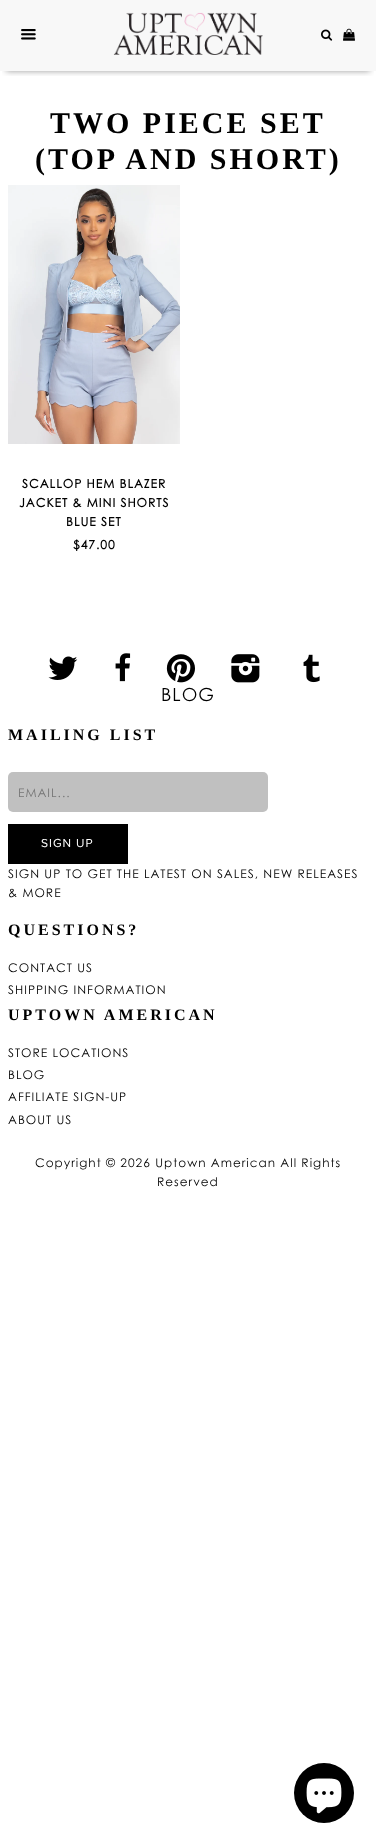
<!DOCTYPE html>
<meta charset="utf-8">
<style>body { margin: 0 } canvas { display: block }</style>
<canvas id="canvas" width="376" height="1844"></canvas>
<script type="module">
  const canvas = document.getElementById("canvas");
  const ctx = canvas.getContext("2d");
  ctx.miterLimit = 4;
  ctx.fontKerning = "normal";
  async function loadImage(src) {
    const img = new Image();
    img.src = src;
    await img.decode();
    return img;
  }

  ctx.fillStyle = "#ffffff";
  ctx.fillRect(0, 0, 376, 1844);
  ctx.fillStyle = "#f8f8f8";
  ctx.fillRect(0, 0, 376, 71);
  ctx.save();
  ctx.beginPath();
  ctx.rect(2, 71, 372, 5);
  ctx.clip();
  ctx.fillStyle = "rgba(0, 0, 0, 0.4)";
  ctx.filter = "blur(3px)";
  ctx.beginPath();
  ctx.rect(6, 12, 364, 59);
  ctx.fill();
  ctx.filter = "none";
  ctx.restore();
  ctx.drawImage(await loadImage("img1.png"), 21, 29, 15, 11);
  ctx.drawImage(await loadImage("img2.png"), 113, 12, 150, 43);
  ctx.drawImage(await loadImage("img3.png"), 321, 29, 12, 12);
  ctx.drawImage(await loadImage("img4.png"), 343, 28, 12, 13);
  ctx.letterSpacing = "3px";
  ctx.font = "bold 30px Liberation Serif";
  ctx.fillStyle = "#000000";
  ctx.fillText("TWO PIECE SET", 50, 133);
  ctx.fillText("(TOP AND SHORT)", 35, 169);
  ctx.drawImage(await loadImage("img5.png"), 8, 185, 172, 259);
  ctx.letterSpacing = "1px";
  ctx.font = "bold 12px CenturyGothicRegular";
  ctx.fillText("SCALLOP HEM BLAZER", 22, 488);
  ctx.fillText("JACKET & MINI SHORTS", 19, 507);
  ctx.fillText("BLUE SET", 66, 526);
  ctx.fillText("$47.00", 73, 549);
  ctx.drawImage(await loadImage("img6.png"), 48, 656, 30, 24);
  ctx.drawImage(await loadImage("img7.png"), 115, 653, 16, 29);
  ctx.drawImage(await loadImage("img8.png"), 166, 654, 29, 29);
  ctx.drawImage(await loadImage("img9.png"), 231, 654, 29, 29);
  ctx.drawImage(await loadImage("img10.png"), 303, 654, 17, 29);
  ctx.font = "18px CenturyGothicRegular";
  ctx.fillText("BLOG", 161, 701);
  ctx.letterSpacing = "3px";
  ctx.font = "bold 16px Liberation Serif";
  ctx.fillText("MAILING LIST", 8, 740);
  ctx.fillStyle = "#c0c0c0";
  ctx.beginPath();
  ctx.roundRect(8, 772, 260, 40, 5);
  ctx.fill();
  ctx.letterSpacing = "1px";
  ctx.font = "12px CenturyGothicRegular";
  ctx.fillStyle = "#757575";
  ctx.fillText("EMAIL...", 18, 797);
  ctx.fillStyle = "#000000";
  ctx.fillRect(8, 824, 120, 40);
  ctx.font = "12px Proxima Nova";
  ctx.fillStyle = "#ffffff";
  ctx.fillText("SIGN UP", 41, 847);
  ctx.font = "12px CenturyGothicRegular";
  ctx.fillStyle = "#000000";
  ctx.fillText("SIGN UP TO GET THE LATEST ON SALES, NEW RELEASES", 8, 878);
  ctx.fillText("& MORE", 8, 897);
  ctx.letterSpacing = "3px";
  ctx.font = "bold 16px Liberation Serif";
  ctx.fillText("QUESTIONS?", 8, 935);
  ctx.letterSpacing = "1px";
  ctx.font = "12px CenturyGothicRegular";
  ctx.fillText("CONTACT US", 8, 972);
  ctx.fillText("SHIPPING INFORMATION", 8, 994);
  ctx.letterSpacing = "3px";
  ctx.font = "bold 16px Liberation Serif";
  ctx.fillText("UPTOWN AMERICAN", 8, 1020);
  ctx.letterSpacing = "1px";
  ctx.font = "12px CenturyGothicRegular";
  ctx.fillText("STORE LOCATIONS", 8, 1057);
  ctx.fillText("BLOG", 8, 1079);
  ctx.fillText("AFFILIATE SIGN-UP", 8, 1101);
  ctx.fillText("ABOUT US", 8, 1124);
  ctx.fillText("Copyright © 2026 Uptown American All Rights", 35, 1167);
  ctx.fillText("Reserved", 157, 1186);
  ctx.beginPath();
  ctx.arc(324, 1793, 30, 0, Math.PI * 2);
  ctx.fill();
  ctx.drawImage(await loadImage("img11.png"), 306, 1778, 36, 36);
</script>
